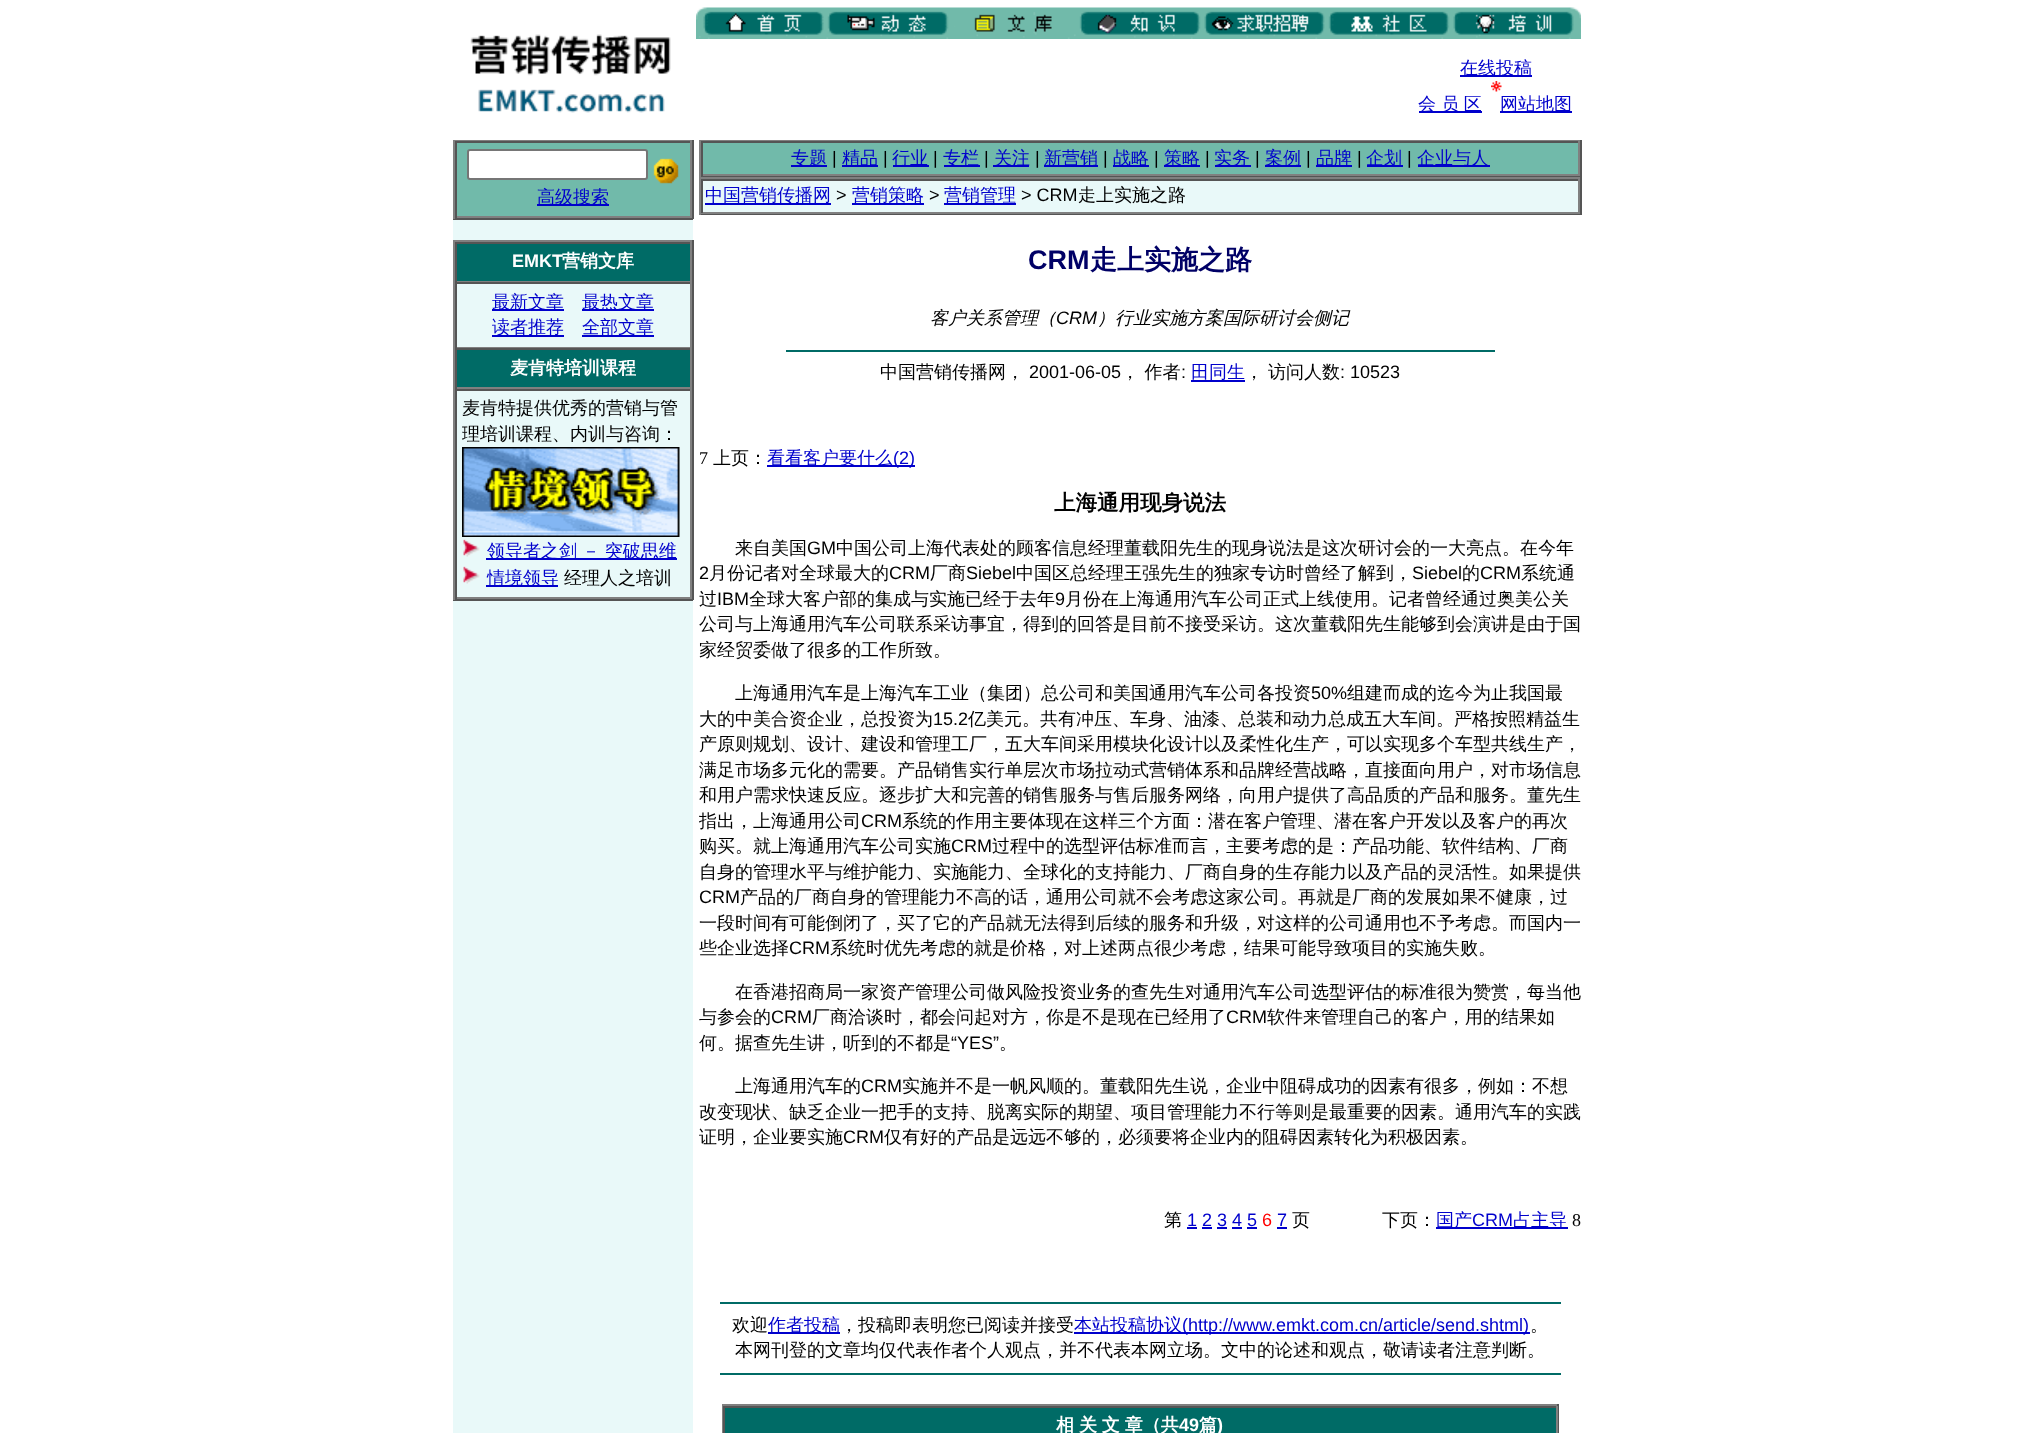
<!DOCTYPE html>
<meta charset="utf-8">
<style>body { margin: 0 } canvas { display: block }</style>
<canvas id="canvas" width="2034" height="1433"></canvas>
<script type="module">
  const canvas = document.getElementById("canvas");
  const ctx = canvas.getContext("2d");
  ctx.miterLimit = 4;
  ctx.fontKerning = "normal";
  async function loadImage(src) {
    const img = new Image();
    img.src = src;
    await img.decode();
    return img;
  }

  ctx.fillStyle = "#ffffff";
  ctx.fillRect(0, 0, 2034, 1433);
  ctx.drawImage(await loadImage("img1.png"), 696, 7, 885, 32);
  ctx.drawImage(await loadImage("img2.png"), 470, 34, 201, 79);
  ctx.fillStyle = "#0000cc";
  ctx.fillRect(1460, 75, 72, 2);
  ctx.font = "500 18px WenQuanYi Zen Hei";
  ctx.fillText("在线投稿", 1460, 74);
  ctx.drawImage(await loadImage("img3.png"), 1491, 81, 11, 11);
  ctx.fillRect(1419, 111, 63, 2);
  ctx.wordSpacing = "-0.5px";
  ctx.fillText("会 员 区", 1418, 110);
  ctx.fillRect(1500, 111, 72, 2);
  ctx.wordSpacing = "0px";
  ctx.fillText("网站地图", 1500, 110);
  ctx.fillStyle = "#e9f9f9";
  ctx.fillRect(453, 220, 240, 1213);
  ctx.fillStyle = "#808080";
  ctx.fillRect(453, 140, 240, 1);
  ctx.fillStyle = "#555555";
  ctx.fillRect(692, 140, 2, 79);
  ctx.fillRect(453, 218, 240, 2);
  ctx.fillStyle = "#808080";
  ctx.fillRect(453, 140, 2, 79);
  ctx.fillStyle = "#71baaa";
  ctx.fillRect(457, 143, 233, 73);
  ctx.fillStyle = "#555555";
  ctx.fillRect(455, 141, 237, 2);
  ctx.fillStyle = "#808080";
  ctx.fillRect(690, 141, 2, 77);
  ctx.fillRect(455, 216, 237, 2);
  ctx.fillStyle = "#555555";
  ctx.fillRect(455, 141, 2, 77);
  ctx.fillStyle = "#ffffff";
  ctx.beginPath();
  ctx.roundRect(468, 150, 179, 29, 2);
  ctx.fill();
  ctx.strokeStyle = "#767676";
  ctx.lineWidth = 2;
  ctx.stroke();
  ctx.drawImage(await loadImage("img4.png"), 653, 158, 26, 26);
  ctx.fillStyle = "#0000cc";
  ctx.fillRect(537, 204, 72, 2);
  ctx.fillText("高级搜索", 537, 203);
  ctx.fillStyle = "#808080";
  ctx.fillRect(453, 240, 240, 2);
  ctx.fillStyle = "#555555";
  ctx.fillRect(692, 240, 2, 360);
  ctx.fillRect(453, 599, 240, 2);
  ctx.fillStyle = "#808080";
  ctx.fillRect(453, 240, 2, 360);
  ctx.fillStyle = "#006b66";
  ctx.fillRect(457, 244, 233, 37);
  ctx.fillStyle = "#555555";
  ctx.fillRect(455, 242, 237, 2);
  ctx.fillStyle = "#808080";
  ctx.fillRect(690, 242, 2, 40);
  ctx.fillRect(455, 281, 237, 1);
  ctx.fillStyle = "#555555";
  ctx.fillRect(455, 242, 2, 40);
  ctx.font = "bold 18px Liberation Sans";
  ctx.fillStyle = "#ffffff";
  ctx.fillText("EMKT", 512, 267);
  ctx.font = "bold 18px WenQuanYi Zen Hei";
  ctx.fillText("营销文库", 562, 267);
  ctx.fillStyle = "#555555";
  ctx.fillRect(455, 282, 237, 2);
  ctx.fillStyle = "#808080";
  ctx.fillRect(690, 282, 2, 66);
  ctx.fillRect(455, 347, 237, 1);
  ctx.fillStyle = "#555555";
  ctx.fillRect(455, 282, 2, 66);
  ctx.fillStyle = "#0000cc";
  ctx.fillRect(492, 309, 72, 2);
  ctx.font = "500 18px WenQuanYi Zen Hei";
  ctx.fillText("最新文章", 492, 308);
  ctx.fillRect(582, 309, 72, 2);
  ctx.fillText("最热文章", 582, 308);
  ctx.fillRect(492, 335, 72, 2);
  ctx.fillText("读者推荐", 492, 333);
  ctx.fillRect(582, 335, 72, 2);
  ctx.fillText("全部文章", 582, 333);
  ctx.fillStyle = "#006b66";
  ctx.fillRect(457, 350, 233, 37);
  ctx.fillStyle = "#555555";
  ctx.fillRect(455, 348, 237, 2);
  ctx.fillStyle = "#808080";
  ctx.fillRect(690, 348, 2, 41);
  ctx.fillRect(455, 387, 237, 2);
  ctx.fillStyle = "#555555";
  ctx.fillRect(455, 348, 2, 41);
  ctx.font = "bold 18px WenQuanYi Zen Hei";
  ctx.fillStyle = "#ffffff";
  ctx.fillText("麦肯特培训课程", 510, 374);
  ctx.fillStyle = "#555555";
  ctx.fillRect(455, 389, 237, 2);
  ctx.fillStyle = "#808080";
  ctx.fillRect(690, 389, 2, 210);
  ctx.fillRect(455, 597, 237, 2);
  ctx.fillStyle = "#555555";
  ctx.fillRect(455, 389, 2, 210);
  ctx.font = "500 18px WenQuanYi Zen Hei";
  ctx.fillStyle = "#000000";
  ctx.fillText("麦肯特提供优秀的营销与管", 462, 414);
  ctx.fillText("理培训课程、内训与咨询：", 462, 440);
  ctx.drawImage(await loadImage("img5.png"), 462, 447, 218, 90);
  ctx.drawImage(await loadImage("img6.png"), 463, 539, 17, 18);
  ctx.fillStyle = "#0000cc";
  ctx.fillRect(486, 558, 191, 2);
  ctx.wordSpacing = "-0.5px";
  ctx.fillText("领导者之剑 － 突破思维", 487, 557);
  ctx.drawImage(await loadImage("img6.png"), 463, 566, 17, 18);
  ctx.fillRect(486, 585, 72, 2);
  ctx.wordSpacing = "0px";
  ctx.fillText("情境领导", 487, 584);
  ctx.fillStyle = "#000000";
  ctx.fillText("经理人之培训", 564, 584);
  ctx.fillStyle = "#808080";
  ctx.fillRect(699, 140, 882, 1);
  ctx.fillStyle = "#555555";
  ctx.fillRect(1580, 140, 2, 37);
  ctx.fillRect(699, 176, 882, 1);
  ctx.fillStyle = "#808080";
  ctx.fillRect(699, 140, 2, 37);
  ctx.fillStyle = "#71baaa";
  ctx.fillRect(703, 143, 875, 31);
  ctx.fillStyle = "#555555";
  ctx.fillRect(701, 141, 879, 2);
  ctx.fillStyle = "#808080";
  ctx.fillRect(1578, 141, 2, 35);
  ctx.fillRect(701, 174, 879, 2);
  ctx.fillStyle = "#555555";
  ctx.fillRect(701, 141, 2, 35);
  ctx.fillStyle = "#0000cc";
  ctx.fillRect(791, 165, 36, 2);
  ctx.fillText("专题", 791, 164);
  ctx.font = "18px Liberation Sans";
  ctx.fillStyle = "#000000";
  ctx.fillText("|", 832, 164);
  ctx.fillStyle = "#0000cc";
  ctx.fillRect(842, 165, 36, 2);
  ctx.font = "500 18px WenQuanYi Zen Hei";
  ctx.fillText("精品", 842, 164);
  ctx.font = "18px Liberation Sans";
  ctx.fillStyle = "#000000";
  ctx.fillText("|", 883, 164);
  ctx.fillStyle = "#0000cc";
  ctx.fillRect(893, 165, 36, 2);
  ctx.font = "500 18px WenQuanYi Zen Hei";
  ctx.fillText("行业", 892, 164);
  ctx.font = "18px Liberation Sans";
  ctx.fillStyle = "#000000";
  ctx.fillText("|", 933, 164);
  ctx.fillStyle = "#0000cc";
  ctx.fillRect(944, 165, 36, 2);
  ctx.font = "500 18px WenQuanYi Zen Hei";
  ctx.fillText("专栏", 943, 164);
  ctx.font = "18px Liberation Sans";
  ctx.fillStyle = "#000000";
  ctx.fillText("|", 984, 164);
  ctx.fillStyle = "#0000cc";
  ctx.fillRect(993, 165, 36, 2);
  ctx.font = "500 18px WenQuanYi Zen Hei";
  ctx.fillText("关注", 994, 164);
  ctx.font = "18px Liberation Sans";
  ctx.fillStyle = "#000000";
  ctx.fillText("|", 1035, 164);
  ctx.fillStyle = "#0000cc";
  ctx.fillRect(1044, 165, 54, 2);
  ctx.font = "500 18px WenQuanYi Zen Hei";
  ctx.fillText("新营销", 1044, 164);
  ctx.font = "18px Liberation Sans";
  ctx.fillStyle = "#000000";
  ctx.fillText("|", 1103, 164);
  ctx.fillStyle = "#0000cc";
  ctx.fillRect(1113, 165, 36, 2);
  ctx.font = "500 18px WenQuanYi Zen Hei";
  ctx.fillText("战略", 1113, 164);
  ctx.font = "18px Liberation Sans";
  ctx.fillStyle = "#000000";
  ctx.fillText("|", 1154, 164);
  ctx.fillStyle = "#0000cc";
  ctx.fillRect(1164, 165, 36, 2);
  ctx.font = "500 18px WenQuanYi Zen Hei";
  ctx.fillText("策略", 1164, 164);
  ctx.font = "18px Liberation Sans";
  ctx.fillStyle = "#000000";
  ctx.fillText("|", 1205, 164);
  ctx.fillStyle = "#0000cc";
  ctx.fillRect(1215, 165, 36, 2);
  ctx.font = "500 18px WenQuanYi Zen Hei";
  ctx.fillText("实务", 1214, 164);
  ctx.font = "18px Liberation Sans";
  ctx.fillStyle = "#000000";
  ctx.fillText("|", 1255, 164);
  ctx.fillStyle = "#0000cc";
  ctx.fillRect(1265, 165, 36, 2);
  ctx.font = "500 18px WenQuanYi Zen Hei";
  ctx.fillText("案例", 1265, 164);
  ctx.font = "18px Liberation Sans";
  ctx.fillStyle = "#000000";
  ctx.fillText("|", 1306, 164);
  ctx.fillStyle = "#0000cc";
  ctx.fillRect(1316, 165, 36, 2);
  ctx.font = "500 18px WenQuanYi Zen Hei";
  ctx.fillText("品牌", 1316, 164);
  ctx.font = "18px Liberation Sans";
  ctx.fillStyle = "#000000";
  ctx.fillText("|", 1357, 164);
  ctx.fillStyle = "#0000cc";
  ctx.fillRect(1367, 165, 36, 2);
  ctx.font = "500 18px WenQuanYi Zen Hei";
  ctx.fillText("企划", 1366, 164);
  ctx.font = "18px Liberation Sans";
  ctx.fillStyle = "#000000";
  ctx.fillText("|", 1407, 164);
  ctx.fillStyle = "#0000cc";
  ctx.fillRect(1418, 165, 72, 2);
  ctx.font = "500 18px WenQuanYi Zen Hei";
  ctx.fillText("企业与人", 1417, 164);
  ctx.fillStyle = "#808080";
  ctx.fillRect(699, 177, 882, 2);
  ctx.fillStyle = "#555555";
  ctx.fillRect(1580, 177, 2, 38);
  ctx.fillRect(699, 213, 882, 2);
  ctx.fillStyle = "#808080";
  ctx.fillRect(699, 177, 2, 38);
  ctx.fillStyle = "#e9f9f9";
  ctx.fillRect(703, 181, 875, 31);
  ctx.fillStyle = "#555555";
  ctx.fillRect(701, 179, 879, 2);
  ctx.fillStyle = "#808080";
  ctx.fillRect(1578, 179, 2, 34);
  ctx.fillRect(701, 212, 879, 2);
  ctx.fillStyle = "#555555";
  ctx.fillRect(701, 179, 2, 34);
  ctx.fillStyle = "#0000cc";
  ctx.fillRect(705, 203, 126, 2);
  ctx.fillText("中国营销传播网", 705, 201);
  ctx.font = "18px Liberation Sans";
  ctx.fillStyle = "#000000";
  ctx.fillText(">", 836, 201);
  ctx.fillStyle = "#0000cc";
  ctx.fillRect(852, 203, 72, 2);
  ctx.font = "500 18px WenQuanYi Zen Hei";
  ctx.fillText("营销策略", 852, 201);
  ctx.font = "18px Liberation Sans";
  ctx.fillStyle = "#000000";
  ctx.fillText(">", 929, 201);
  ctx.fillStyle = "#0000cc";
  ctx.fillRect(944, 203, 72, 2);
  ctx.font = "500 18px WenQuanYi Zen Hei";
  ctx.fillText("营销管理", 944, 201);
  ctx.font = "18px Liberation Sans";
  ctx.fillStyle = "#000000";
  ctx.fillText("> CRM", 1021, 201);
  ctx.font = "500 18px WenQuanYi Zen Hei";
  ctx.fillText("走上实施之路", 1078, 201);
  ctx.font = "bold 27px Liberation Sans";
  ctx.fillStyle = "#000066";
  ctx.fillText("CRM", 1028, 269);
  ctx.font = "bold 27px WenQuanYi Zen Hei";
  ctx.fillText("走上实施之路", 1090, 269);
  ctx.font = "italic 500 18px WenQuanYi Zen Hei";
  ctx.fillStyle = "#000000";
  ctx.fillText("客户关系管理（", 930, 324);
  ctx.font = "italic 18px Liberation Sans";
  ctx.fillText("CRM", 1056, 324);
  ctx.font = "italic 500 18px WenQuanYi Zen Hei";
  ctx.fillText("）行业实施方案国际研讨会侧记", 1097, 324);
  ctx.fillStyle = "#006b66";
  ctx.fillRect(786, 350, 709, 2);
  ctx.font = "500 18px WenQuanYi Zen Hei";
  ctx.fillStyle = "#000000";
  ctx.fillText("中国营销传播网，", 880, 378);
  ctx.font = "18px Liberation Sans";
  ctx.fillText("2001-06-05", 1029, 378);
  ctx.font = "500 18px WenQuanYi Zen Hei";
  ctx.fillText("， 作者", 1121, 378);
  ctx.font = "18px Liberation Sans";
  ctx.fillText(":", 1181, 378);
  ctx.fillStyle = "#0000cc";
  ctx.fillRect(1191, 380, 54, 2);
  ctx.font = "500 18px WenQuanYi Zen Hei";
  ctx.fillText("田同生", 1191, 378);
  ctx.fillStyle = "#000000";
  ctx.fillText("，", 1245, 378);
  ctx.fillText("访问人数", 1268, 378);
  ctx.font = "18px Liberation Sans";
  ctx.fillText(": 10523", 1340, 378);
  ctx.font = "18px Liberation Serif";
  ctx.fillText("7", 699, 464);
  ctx.font = "500 18px WenQuanYi Zen Hei";
  ctx.fillText("上页：", 713, 464);
  ctx.fillStyle = "#0000cc";
  ctx.fillRect(767, 465, 148, 2);
  ctx.fillText("看看客户要什么", 767, 464);
  ctx.font = "18px Liberation Sans";
  ctx.fillText("(2)", 893, 464);
  ctx.font = "bold 21.5px WenQuanYi Zen Hei";
  ctx.fillStyle = "#000000";
  ctx.fillText("上海通用现身说法", 1054, 510);
  ctx.font = "500 18px WenQuanYi Zen Hei";
  ctx.fillText("来自美国", 735, 554);
  ctx.font = "18px Liberation Sans";
  ctx.fillText("GM", 807, 554);
  ctx.font = "500 18px WenQuanYi Zen Hei";
  ctx.fillText("中国公司上海代表处的顾客信息经理董载阳先生的现身说法是这次研讨会的一大亮点。在今年", 836, 554);
  ctx.font = "18px Liberation Sans";
  ctx.fillText("2", 699, 579);
  ctx.font = "500 18px WenQuanYi Zen Hei";
  ctx.fillText("月份记者对全球最大的", 709, 579);
  ctx.font = "18px Liberation Sans";
  ctx.fillText("CRM", 889, 579);
  ctx.font = "500 18px WenQuanYi Zen Hei";
  ctx.fillText("厂商", 930, 579);
  ctx.font = "18px Liberation Sans";
  ctx.fillText("Siebel", 966, 579);
  ctx.font = "500 18px WenQuanYi Zen Hei";
  ctx.fillText("中国区总经理王强先生的独家专访时曾经了解到，", 1016, 579);
  ctx.font = "18px Liberation Sans";
  ctx.fillText("Siebel", 1412, 579);
  ctx.font = "500 18px WenQuanYi Zen Hei";
  ctx.fillText("的", 1462, 579);
  ctx.font = "18px Liberation Sans";
  ctx.fillText("CRM", 1480, 579);
  ctx.font = "500 18px WenQuanYi Zen Hei";
  ctx.fillText("系统通", 1521, 579);
  ctx.fillText("过", 699, 605);
  ctx.font = "18px Liberation Sans";
  ctx.fillText("IBM", 717, 605);
  ctx.font = "500 18px WenQuanYi Zen Hei";
  ctx.fillText("全球大客户部的集成与实施已经于去年", 749, 605);
  ctx.font = "18px Liberation Sans";
  ctx.fillText("9", 1055, 605);
  ctx.font = "500 18px WenQuanYi Zen Hei";
  ctx.fillText("月份在上海通用汽车公司正式上线使用。记者曾经通过奥美公关", 1065, 605);
  ctx.fillText("公司与上海通用汽车公司联系采访事宜，得到的回答是目前不接受采访。这次董载阳先生能够到会演讲是由于国", 699, 630);
  ctx.fillText("家经贸委做了很多的工作所致。", 699, 656);
  ctx.fillText("上海通用汽车是上海汽车工业（集团）总公司和美国通用汽车公司各投资", 735, 699);
  ctx.font = "18px Liberation Sans";
  ctx.fillText("50%", 1311, 699);
  ctx.font = "500 18px WenQuanYi Zen Hei";
  ctx.fillText("组建而成的迄今为止我国最", 1347, 699);
  ctx.fillText("大的中美合资企业，总投资为", 699, 725);
  ctx.font = "18px Liberation Sans";
  ctx.fillText("15.2", 933, 725);
  ctx.font = "500 18px WenQuanYi Zen Hei";
  ctx.fillText("亿美元。共有冲压、车身、油漆、总装和动力总成五大车间。严格按照精益生", 968, 725);
  ctx.fillText("产原则规划、设计、建设和管理工厂，五大车间采用模块化设计以及柔性化生产，可以实现多个车型共线生产，", 699, 750);
  ctx.fillText("满足市场多元化的需要。产品销售实行单层次市场拉动式营销体系和品牌经营战略，直接面向用户，对市场信息", 699, 776);
  ctx.fillText("和用户需求快速反应。逐步扩大和完善的销售服务与售后服务网络，向用户提供了高品质的产品和服务。董先生", 699, 801);
  ctx.fillText("指出，上海通用公司", 699, 827);
  ctx.font = "18px Liberation Sans";
  ctx.fillText("CRM", 861, 827);
  ctx.font = "500 18px WenQuanYi Zen Hei";
  ctx.fillText("系统的作用主要体现在这样三个方面：潜在客户管理、潜在客户开发以及客户的再次", 902, 827);
  ctx.fillText("购买。就上海通用汽车公司实施", 699, 852);
  ctx.font = "18px Liberation Sans";
  ctx.fillText("CRM", 951, 852);
  ctx.font = "500 18px WenQuanYi Zen Hei";
  ctx.fillText("过程中的选型评估标准而言，主要考虑的是：产品功能、软件结构、厂商", 992, 852);
  ctx.fillText("自身的管理水平与维护能力、实施能力、全球化的支持能力、厂商自身的生存能力以及产品的灵活性。如果提供", 699, 878);
  ctx.font = "18px Liberation Sans";
  ctx.fillText("CRM", 699, 903);
  ctx.font = "500 18px WenQuanYi Zen Hei";
  ctx.fillText("产品的厂商自身的管理能力不高的话，通用公司就不会考虑这家公司。再就是厂商的发展如果不健康，过", 740, 903);
  ctx.fillText("一段时间有可能倒闭了，买了它的产品就无法得到后续的服务和升级，对这样的公司通用也不予考虑。而国内一", 699, 929);
  ctx.fillText("些企业选择", 699, 954);
  ctx.font = "18px Liberation Sans";
  ctx.fillText("CRM", 789, 954);
  ctx.font = "500 18px WenQuanYi Zen Hei";
  ctx.fillText("系统时优先考虑的就是价格，对上述两点很少考虑，结果可能导致项目的实施失败。", 830, 954);
  ctx.fillText("在香港招商局一家资产管理公司做风险投资业务的查先生对通用汽车公司选型评估的标准很为赞赏，每当他", 735, 998);
  ctx.fillText("与参会的", 699, 1023);
  ctx.font = "18px Liberation Sans";
  ctx.fillText("CRM", 771, 1023);
  ctx.font = "500 18px WenQuanYi Zen Hei";
  ctx.fillText("厂商洽谈时，都会问起对方，你是不是现在已经用了", 812, 1023);
  ctx.font = "18px Liberation Sans";
  ctx.fillText("CRM", 1226, 1023);
  ctx.font = "500 18px WenQuanYi Zen Hei";
  ctx.fillText("软件来管理自己的客户，用的结果如", 1267, 1023);
  ctx.fillText("何。据查先生讲，听到的不都是", 699, 1049);
  ctx.font = "18px Liberation Sans";
  ctx.fillText("“YES”", 951, 1049);
  ctx.font = "500 18px WenQuanYi Zen Hei";
  ctx.fillText("。", 999, 1049);
  ctx.fillText("上海通用汽车的", 735, 1092);
  ctx.font = "18px Liberation Sans";
  ctx.fillText("CRM", 861, 1092);
  ctx.font = "500 18px WenQuanYi Zen Hei";
  ctx.fillText("实施并不是一帆风顺的。董载阳先生说，企业中阻碍成功的因素有很多，例如：不想", 902, 1092);
  ctx.fillText("改变现状、缺乏企业一把手的支持、脱离实际的期望、项目管理能力不行等则是最重要的因素。通用汽车的实践", 699, 1118);
  ctx.fillText("证明，企业要实施", 699, 1143);
  ctx.font = "18px Liberation Sans";
  ctx.fillText("CRM", 843, 1143);
  ctx.font = "500 18px WenQuanYi Zen Hei";
  ctx.fillText("仅有好的产品是远远不够的，必须要将企业内的阻碍因素转化为积极因素。", 884, 1143);
  ctx.fillText("第", 1164, 1226);
  ctx.font = "18px Liberation Sans";
  ctx.fillStyle = "#0000cc";
  ctx.fillText("1 2 3 4 5", 1187, 1226);
  ctx.fillRect(1187, 1227, 10, 2);
  ctx.fillRect(1202, 1227, 10, 2);
  ctx.fillRect(1217, 1227, 10, 2);
  ctx.fillRect(1232, 1227, 10, 2);
  ctx.fillRect(1247, 1227, 10, 2);
  ctx.fillStyle = "#ff0000";
  ctx.fillText("6", 1262, 1226);
  ctx.fillStyle = "#0000cc";
  ctx.fillText("7", 1277, 1226);
  ctx.fillRect(1277, 1227, 10, 2);
  ctx.font = "500 18px WenQuanYi Zen Hei";
  ctx.fillStyle = "#000000";
  ctx.fillText("页　　　　下页：", 1292, 1226);
  ctx.fillStyle = "#0000cc";
  ctx.fillRect(1436, 1227, 132, 2);
  ctx.fillText("国产", 1436, 1226);
  ctx.font = "18px Liberation Sans";
  ctx.fillText("CRM", 1472, 1226);
  ctx.font = "500 18px WenQuanYi Zen Hei";
  ctx.fillText("占主导", 1513, 1226);
  ctx.font = "18px Liberation Serif";
  ctx.fillStyle = "#000000";
  ctx.fillText("8", 1572, 1226);
  ctx.fillStyle = "#006b66";
  ctx.fillRect(720, 1302, 841, 2);
  ctx.font = "500 18px WenQuanYi Zen Hei";
  ctx.fillStyle = "#000000";
  ctx.fillText("欢迎", 732, 1331);
  ctx.fillStyle = "#0000cc";
  ctx.fillRect(768, 1332, 72, 2);
  ctx.fillText("作者投稿", 768, 1331);
  ctx.fillStyle = "#000000";
  ctx.fillText("，投稿即表明您已阅读并接受", 840, 1331);
  ctx.fillStyle = "#0000cc";
  ctx.fillRect(1074, 1332, 456, 2);
  ctx.fillText("本站投稿协议", 1074, 1331);
  ctx.font = "18px Liberation Sans";
  ctx.fillText("(http://www.emkt.com.cn/article/send.shtml)", 1182, 1331);
  ctx.font = "500 18px WenQuanYi Zen Hei";
  ctx.fillStyle = "#000000";
  ctx.fillText("。", 1530, 1331);
  ctx.fillText("本网刊登的文章均仅代表作者个人观点，并不代表本网立场。文中的论述和观点，敬请读者注意判断。", 735, 1356);
  ctx.fillStyle = "#006b66";
  ctx.fillRect(720, 1373, 841, 2);
  ctx.fillStyle = "#808080";
  ctx.fillRect(722, 1404, 837, 2);
  ctx.fillStyle = "#555555";
  ctx.fillRect(1557, 1404, 2, 29);
  ctx.fillStyle = "#808080";
  ctx.fillRect(722, 1404, 2, 29);
  ctx.fillStyle = "#006b66";
  ctx.fillRect(725, 1408, 831, 25);
  ctx.fillStyle = "#555555";
  ctx.fillRect(723, 1406, 834, 2);
  ctx.fillStyle = "#808080";
  ctx.fillRect(1556, 1406, 2, 27);
  ctx.fillStyle = "#555555";
  ctx.fillRect(723, 1406, 2, 27);
  ctx.wordSpacing = "-0.5px";
  ctx.font = "bold 18px WenQuanYi Zen Hei";
  ctx.fillStyle = "#ffffff";
  ctx.fillText("相 关 文 章（共", 1056, 1431);
  ctx.wordSpacing = "0px";
  ctx.font = "bold 18px Liberation Sans";
  ctx.fillText("49", 1179, 1431);
  ctx.font = "bold 18px WenQuanYi Zen Hei";
  ctx.fillText("篇", 1199, 1431);
  ctx.font = "bold 18px Liberation Sans";
  ctx.fillText(")", 1217, 1431);
</script>
